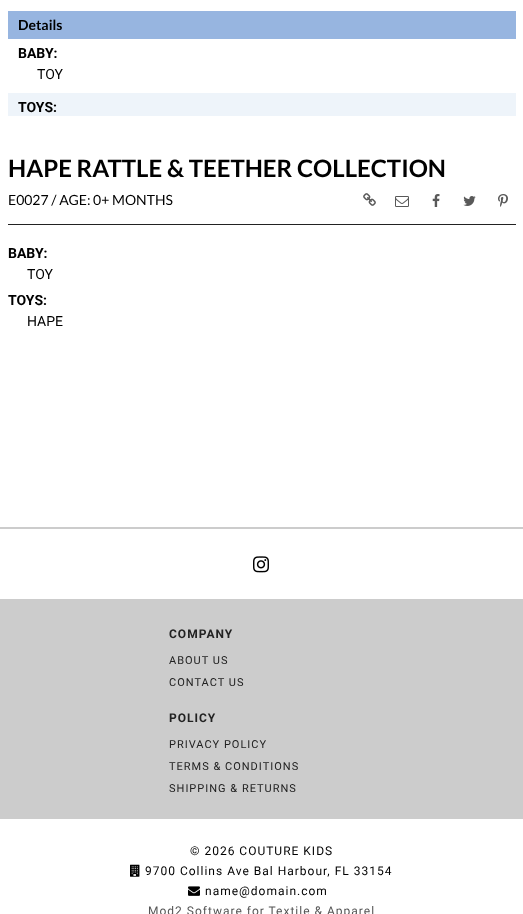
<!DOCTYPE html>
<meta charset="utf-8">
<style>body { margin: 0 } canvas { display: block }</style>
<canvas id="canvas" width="523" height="914"></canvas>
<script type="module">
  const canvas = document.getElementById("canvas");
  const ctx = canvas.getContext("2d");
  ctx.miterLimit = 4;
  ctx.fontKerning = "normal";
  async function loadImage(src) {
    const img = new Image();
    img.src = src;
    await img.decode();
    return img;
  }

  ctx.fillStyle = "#ffffff";
  ctx.fillRect(0, 0, 523, 914);
  ctx.fillStyle = "#97b5e0";
  ctx.fillRect(8, 11, 508, 28);
  ctx.font = "bold 14px Lato";
  ctx.fillStyle = "#000000";
  ctx.fillText("Details", 18, 30);
  ctx.font = "bold 14px Roboto";
  ctx.fillText("BABY:", 18, 58);
  ctx.font = "14px Roboto";
  ctx.fillText("TOY", 37, 79);
  ctx.fillStyle = "#eef4fa";
  ctx.fillRect(8, 93, 508, 23);
  ctx.font = "bold 14px Roboto";
  ctx.fillStyle = "#000000";
  ctx.fillText("TOYS:", 18, 112);
  ctx.font = "bold 24px Lato";
  ctx.fillText("HAPE RATTLE & TEETHER COLLECTION", 8, 177);
  ctx.font = "14px Lato";
  ctx.fillText("E0027 / AGE: 0+ MONTHS", 8, 205);
  ctx.drawImage(await loadImage("img1.png"), 363, 193, 13, 13);
  ctx.drawImage(await loadImage("img2.png"), 395, 196, 14, 11);
  ctx.drawImage(await loadImage("img3.png"), 432, 194, 8, 13);
  ctx.drawImage(await loadImage("img4.png"), 463, 196, 13, 10);
  ctx.drawImage(await loadImage("img5.png"), 498, 194, 10, 13);
  ctx.fillStyle = "#222222";
  ctx.fillRect(8, 224, 508, 1);
  ctx.font = "bold 14px Roboto";
  ctx.fillStyle = "#000000";
  ctx.fillText("BABY:", 8, 258);
  ctx.font = "14px Roboto";
  ctx.fillText("TOY", 27, 279);
  ctx.font = "bold 14px Roboto";
  ctx.fillText("TOYS:", 8, 305);
  ctx.font = "14px Roboto";
  ctx.fillText("HAPE", 27, 326);
  ctx.fillStyle = "#cccccc";
  ctx.fillRect(0, 527, 523, 2);
  ctx.drawImage(await loadImage("img6.png"), 253, 556, 16, 17);
  ctx.fillRect(0, 599, 523, 220);
  ctx.letterSpacing = "1px";
  ctx.font = "bold 12px Roboto";
  ctx.fillStyle = "#222222";
  ctx.fillText("COMPANY", 169, 638);
  ctx.font = "11px Roboto";
  ctx.fillText("ABOUT US", 169, 664);
  ctx.fillText("CONTACT US", 169, 686);
  ctx.font = "bold 12px Roboto";
  ctx.fillText("POLICY", 169, 722);
  ctx.font = "11px Roboto";
  ctx.fillText("PRIVACY POLICY", 169, 748);
  ctx.fillText("TERMS & CONDITIONS", 169, 770);
  ctx.fillText("SHIPPING & RETURNS", 169, 792);
  ctx.font = "12px Roboto";
  ctx.fillStyle = "#000000";
  ctx.fillText("© 2026 COUTURE KIDS", 190, 855);
  ctx.drawImage(await loadImage("img7.png"), 130, 864, 10, 13);
  ctx.fillText("9700 Collins Ave Bal Harbour, FL 33154", 145, 875);
  ctx.drawImage(await loadImage("img8.png"), 188, 886, 12, 10);
  ctx.fillText("name@domain.com", 205, 895);
  ctx.fillStyle = "#555555";
  ctx.fillText("Mod2 Software for Textile & Apparel", 148, 915);
</script>
